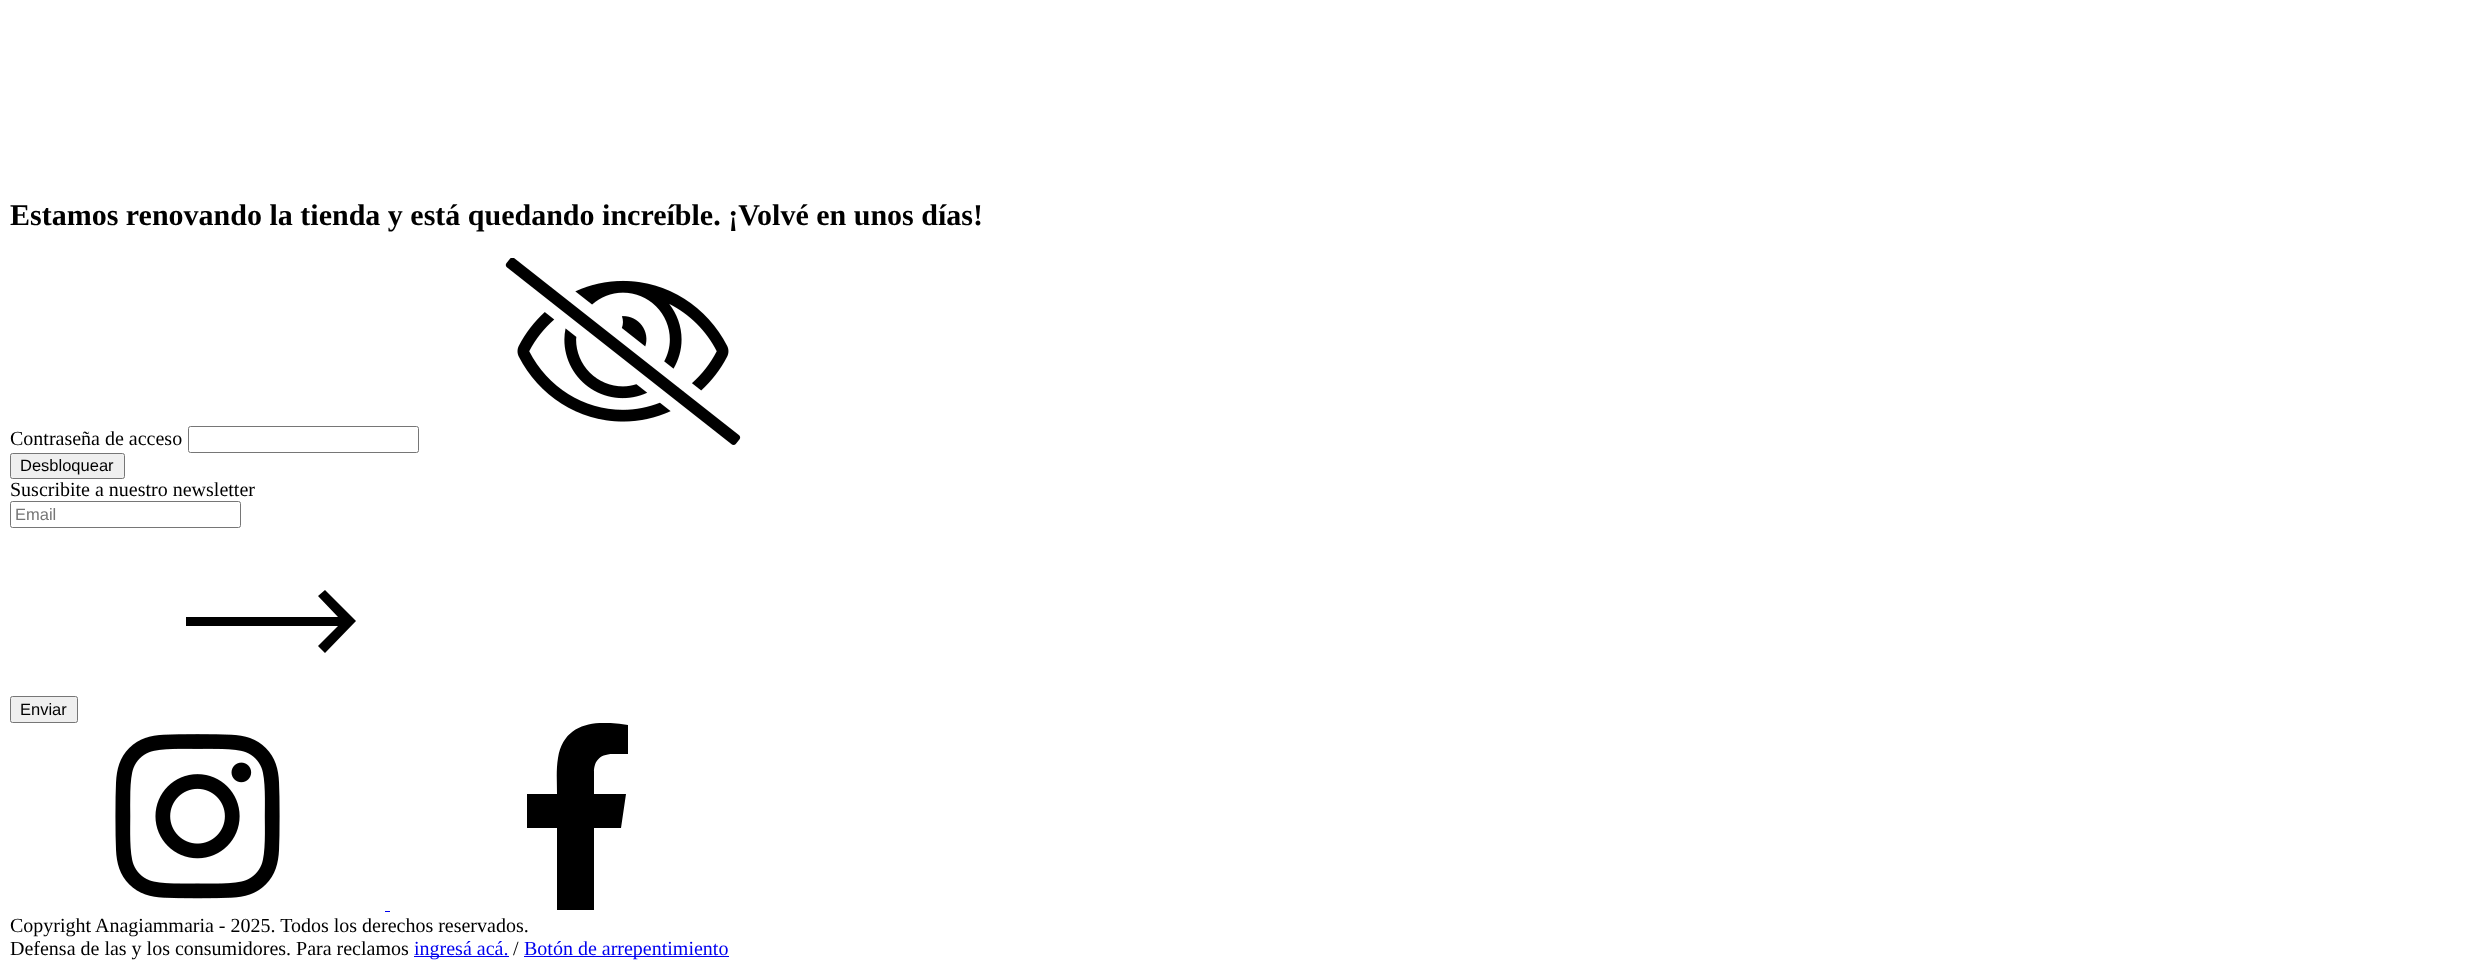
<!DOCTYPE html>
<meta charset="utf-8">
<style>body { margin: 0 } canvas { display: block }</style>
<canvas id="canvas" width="2466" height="979"></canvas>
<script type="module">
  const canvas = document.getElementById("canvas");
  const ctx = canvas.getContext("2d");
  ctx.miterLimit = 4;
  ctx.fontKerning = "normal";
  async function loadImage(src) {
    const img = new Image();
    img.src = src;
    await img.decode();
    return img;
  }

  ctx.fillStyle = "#ffffff";
  ctx.fillRect(0, 0, 2466, 979);
  ctx.font = "bold 30px Liberation Serif";
  ctx.fillStyle = "#000000";
  ctx.fillText("Estamos renovando la tienda y está quedando increíble. ¡Volvé en unos días!", 10, 225);
  ctx.font = "20px Liberation Serif";
  ctx.fillText("Contraseña de acceso", 10, 445);
  ctx.beginPath();
  ctx.roundRect(188.5, 426.5, 230, 26, 2);
  ctx.strokeStyle = "#767676";
  ctx.stroke();
  ctx.drawImage(await loadImage("img1.png"), 505, 258, 236, 187);
  ctx.fillStyle = "#efefef";
  ctx.beginPath();
  ctx.roundRect(10.5, 453.5, 114, 25, 2);
  ctx.fill();
  ctx.stroke();
  ctx.font = "16.5px Liberation Sans";
  ctx.fillStyle = "#000000";
  ctx.fillText("Desbloquear", 20, 471);
  ctx.font = "20px Liberation Serif";
  ctx.fillText("Suscribite a nuestro newsletter", 10, 496);
  ctx.beginPath();
  ctx.roundRect(10.5, 501.5, 230, 26, 2);
  ctx.stroke();
  ctx.font = "16.5px Liberation Sans";
  ctx.fillStyle = "#757575";
  ctx.fillText("Email", 15, 520);
  ctx.fillStyle = "#000000";
  ctx.beginPath();
  ctx.moveTo(338, 617);
  ctx.lineTo(318, 596);
  ctx.lineTo(325, 590);
  ctx.lineTo(356, 621);
  ctx.lineTo(325, 653);
  ctx.lineTo(318, 646);
  ctx.lineTo(338, 626);
  ctx.lineTo(186, 626);
  ctx.lineTo(186, 617);
  ctx.closePath();
  ctx.fill();
  ctx.fillStyle = "#efefef";
  ctx.beginPath();
  ctx.roundRect(10.5, 696.5, 67, 26, 2);
  ctx.fill();
  ctx.stroke();
  ctx.fillStyle = "#000000";
  ctx.fillText("Enviar", 20, 715);
  ctx.drawImage(await loadImage("img2.png"), 115, 734, 165, 165);
  ctx.save();
  ctx.beginPath();
  ctx.rect(390, 723, 375, 187);
  ctx.clip();
  ctx.beginPath();
  ctx.moveTo(621, 828);
  ctx.lineTo(626, 794);
  ctx.lineTo(594, 794);
  ctx.lineTo(594, 772);
  ctx.bezierCurveTo(594, 763, 598, 754, 613, 754);
  ctx.lineTo(628, 754);
  ctx.lineTo(628, 725);
  ctx.bezierCurveTo(598, 720, 564, 721, 558, 758);
  ctx.bezierCurveTo(556, 770, 557, 782, 557, 794);
  ctx.lineTo(527, 794);
  ctx.lineTo(527, 828);
  ctx.lineTo(557, 828);
  ctx.lineTo(557, 910);
  ctx.lineTo(594, 910);
  ctx.lineTo(594, 828);
  ctx.closePath();
  ctx.fill();
  ctx.restore();
  ctx.fillStyle = "#0000ee";
  ctx.fillRect(385, 911, 5, 1);
  ctx.font = "20px Liberation Serif";
  ctx.fillStyle = "#000000";
  ctx.fillText("Copyright Anagiammaria - 2025. Todos los derechos reservados.", 10, 932);
  ctx.fillText("Defensa de las y los consumidores. Para reclamos", 10, 955);
  ctx.fillStyle = "#0000ee";
  ctx.fillRect(414, 956, 95, 1);
  ctx.fillText("ingresá acá.", 414, 955);
  ctx.fillStyle = "#000000";
  ctx.fillText("/", 513, 955);
  ctx.fillStyle = "#0000ee";
  ctx.fillRect(524, 956, 205, 1);
  ctx.fillText("Botón de arrepentimiento", 524, 955);
</script>
